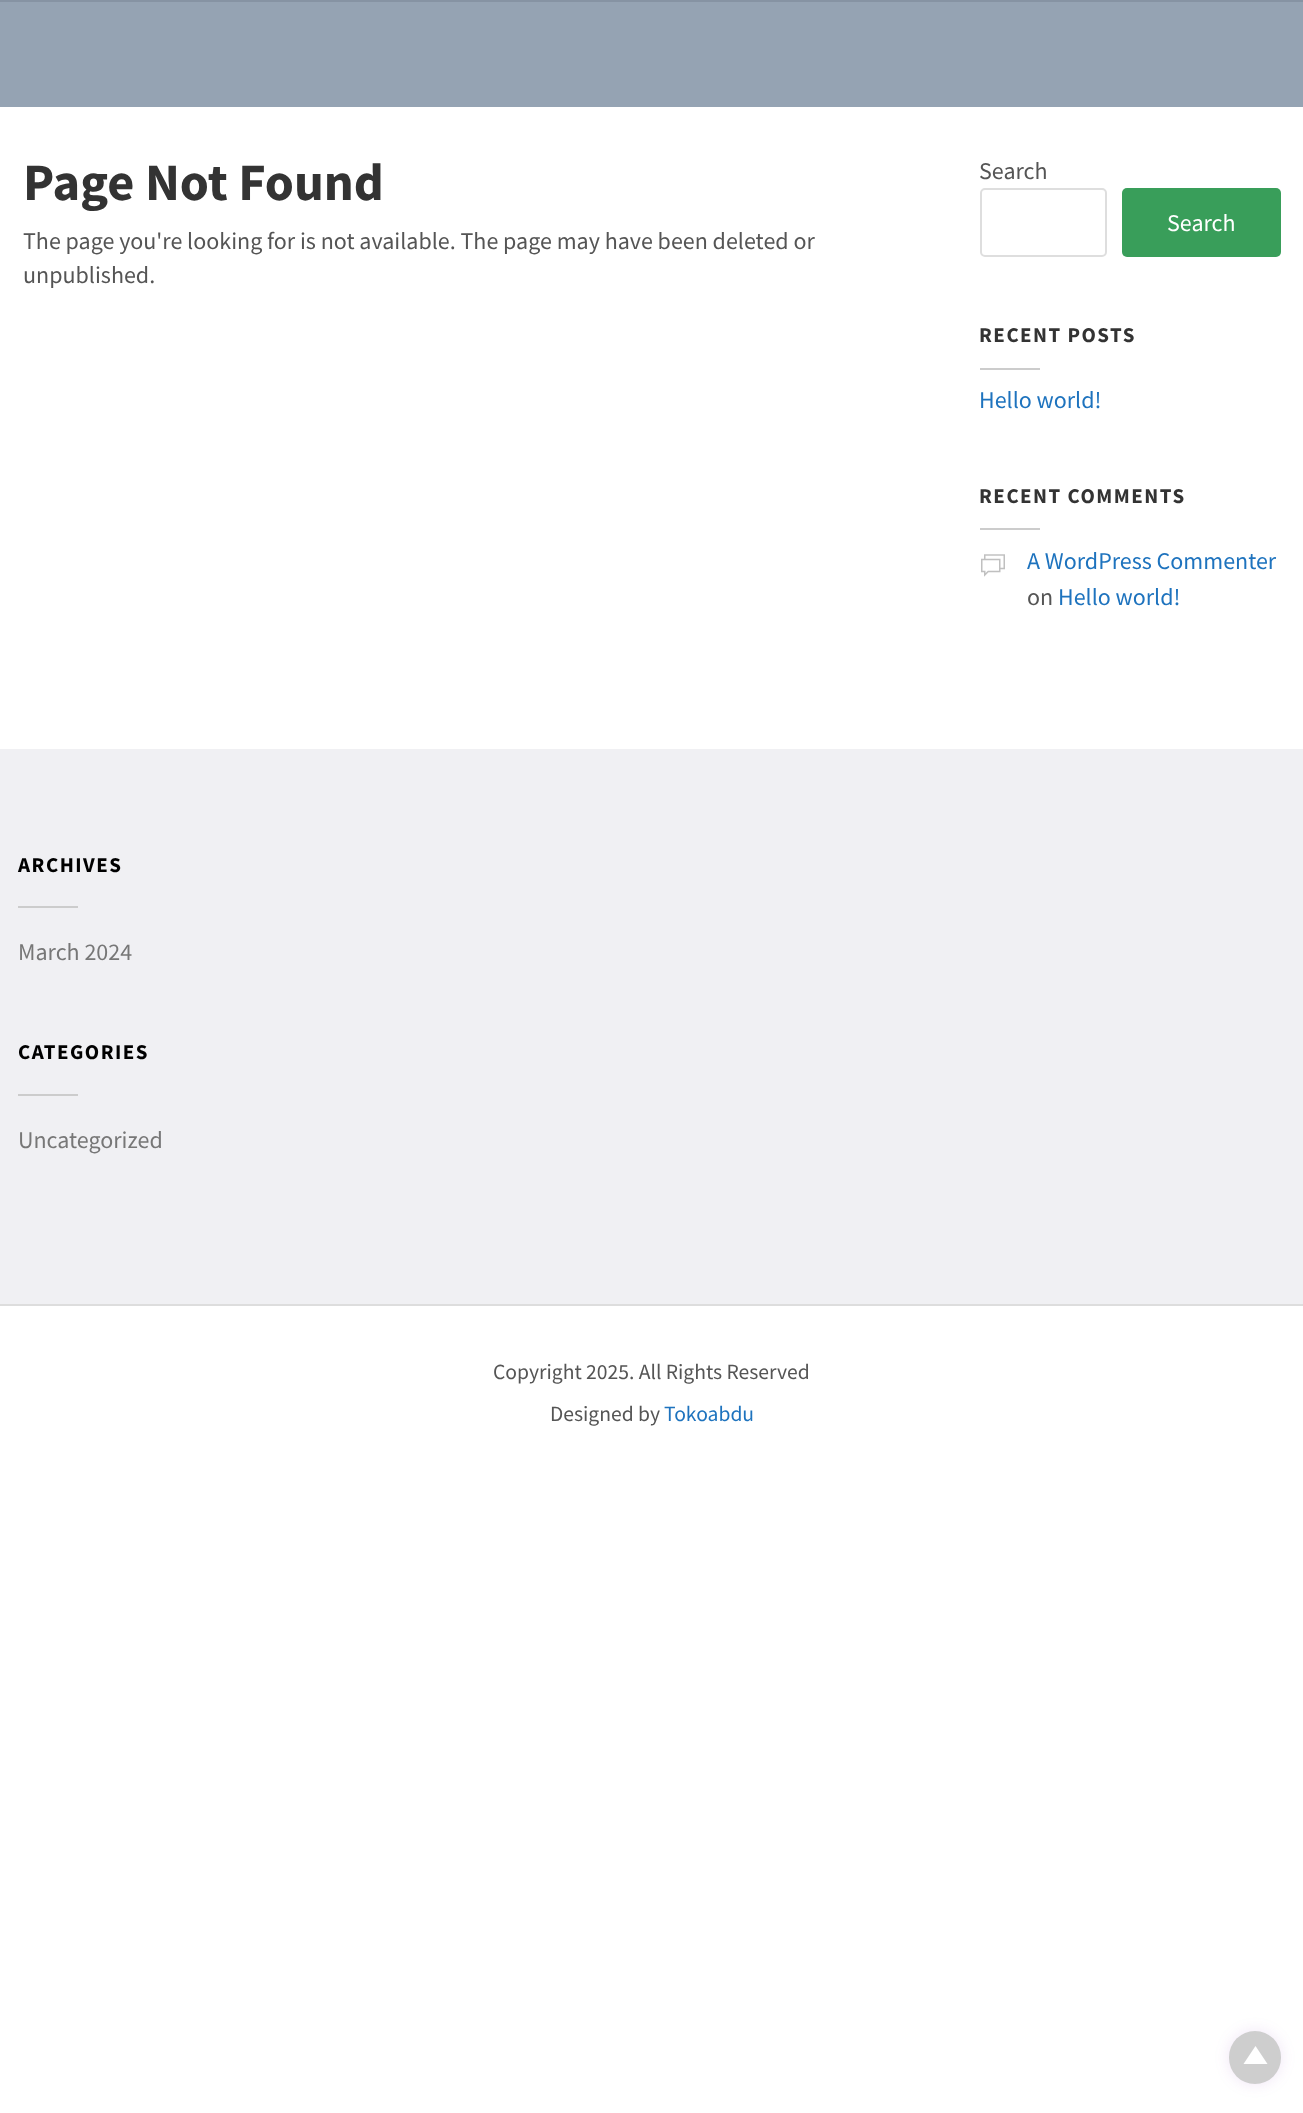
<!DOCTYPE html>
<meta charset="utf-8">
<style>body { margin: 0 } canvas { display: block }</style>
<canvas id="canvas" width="1303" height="2113"></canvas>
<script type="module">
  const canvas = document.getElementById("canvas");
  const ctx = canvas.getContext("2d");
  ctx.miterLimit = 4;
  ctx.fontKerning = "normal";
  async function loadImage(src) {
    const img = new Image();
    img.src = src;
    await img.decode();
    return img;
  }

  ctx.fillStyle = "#ffffff";
  ctx.fillRect(0, 0, 1303, 2113);
  ctx.fillStyle = "#95a3b3";
  ctx.fillRect(0, 2, 1303, 105);
  ctx.fillStyle = "#8693a3";
  ctx.fillRect(0, 0, 1303, 2);
  ctx.font = "bold 52.5px Source Sans Pro";
  ctx.fillStyle = "#333333";
  ctx.fillText("Page Not Found", 23, 200);
  ctx.font = "24px Source Sans Pro";
  ctx.fillStyle = "#555555";
  ctx.fillText("The page you're looking for is not available. The page may have been deleted or", 23, 249);
  ctx.fillText("unpublished.", 23, 283);
  ctx.fillText("Search", 979, 179);
  ctx.beginPath();
  ctx.roundRect(981, 189, 125, 67, 4);
  ctx.strokeStyle = "#dedede";
  ctx.lineWidth = 2;
  ctx.stroke();
  ctx.fillStyle = "#399e5a";
  ctx.beginPath();
  ctx.roundRect(1122, 188, 159, 69, 5);
  ctx.fill();
  ctx.fillStyle = "#ffffff";
  ctx.fillText("Search", 1167, 231);
  ctx.letterSpacing = "1.5px";
  ctx.font = "bold 21px Source Sans Pro";
  ctx.fillStyle = "#333333";
  ctx.fillText("RECENT POSTS", 979, 342);
  ctx.fillStyle = "#cccccc";
  ctx.fillRect(980, 368, 60, 2);
  ctx.letterSpacing = "0px";
  ctx.font = "24px Source Sans Pro";
  ctx.fillStyle = "#1e73be";
  ctx.fillText("Hello world!", 979, 408);
  ctx.letterSpacing = "1.5px";
  ctx.font = "bold 21px Source Sans Pro";
  ctx.fillStyle = "#333333";
  ctx.fillText("RECENT COMMENTS", 979, 503);
  ctx.fillStyle = "#cccccc";
  ctx.fillRect(980, 528, 60, 2);
  ctx.drawImage(await loadImage("img1.png"), 981, 554, 24, 23);
  ctx.letterSpacing = "0px";
  ctx.font = "24px Source Sans Pro";
  ctx.fillStyle = "#1e73be";
  ctx.fillText("A WordPress Commenter", 1027, 569);
  ctx.fillStyle = "#555555";
  ctx.fillText("on", 1027, 605);
  ctx.fillStyle = "#1e73be";
  ctx.fillText("Hello world!", 1058, 605);
  ctx.fillStyle = "#f0f0f3";
  ctx.fillRect(0, 749, 1303, 555);
  ctx.letterSpacing = "1.5px";
  ctx.font = "bold 21px Source Sans Pro";
  ctx.fillStyle = "#000000";
  ctx.fillText("ARCHIVES", 18, 872);
  ctx.fillStyle = "#cccccc";
  ctx.fillRect(18, 906, 60, 2);
  ctx.letterSpacing = "0px";
  ctx.font = "24px Source Sans Pro";
  ctx.fillStyle = "#777777";
  ctx.fillText("March 2024", 18, 960);
  ctx.letterSpacing = "1.5px";
  ctx.font = "bold 21px Source Sans Pro";
  ctx.fillStyle = "#000000";
  ctx.fillText("CATEGORIES", 18, 1059);
  ctx.fillStyle = "#cccccc";
  ctx.fillRect(18, 1094, 60, 2);
  ctx.letterSpacing = "0px";
  ctx.font = "24px Source Sans Pro";
  ctx.fillStyle = "#777777";
  ctx.fillText("Uncategorized", 18, 1148);
  ctx.fillStyle = "#dddddd";
  ctx.fillRect(0, 1304, 1303, 2);
  ctx.font = "21.6px Source Sans Pro";
  ctx.fillStyle = "#555555";
  ctx.fillText("Copyright 2025. All Rights Reserved", 493, 1379);
  ctx.fillText("Designed by", 550, 1421);
  ctx.fillStyle = "#1e73be";
  ctx.fillText("Tokoabdu", 664, 1421);
  ctx.fillStyle = "rgba(106, 10, 171, 0.1)";
  ctx.filter = "blur(7.5px)";
  ctx.beginPath();
  ctx.roundRect(1229, 2031, 52, 53, 26);
  ctx.fill();
  ctx.filter = "none";
  ctx.fillStyle = "#cecece";
  ctx.beginPath();
  ctx.roundRect(1229, 2031, 52, 53, 26);
  ctx.fill();
  ctx.fillStyle = "#ffffff";
  ctx.beginPath();
  ctx.moveTo(1255.5, 2046);
  ctx.lineTo(1267.5, 2064);
  ctx.lineTo(1243.5, 2064);
  ctx.closePath();
  ctx.fill();
</script>
